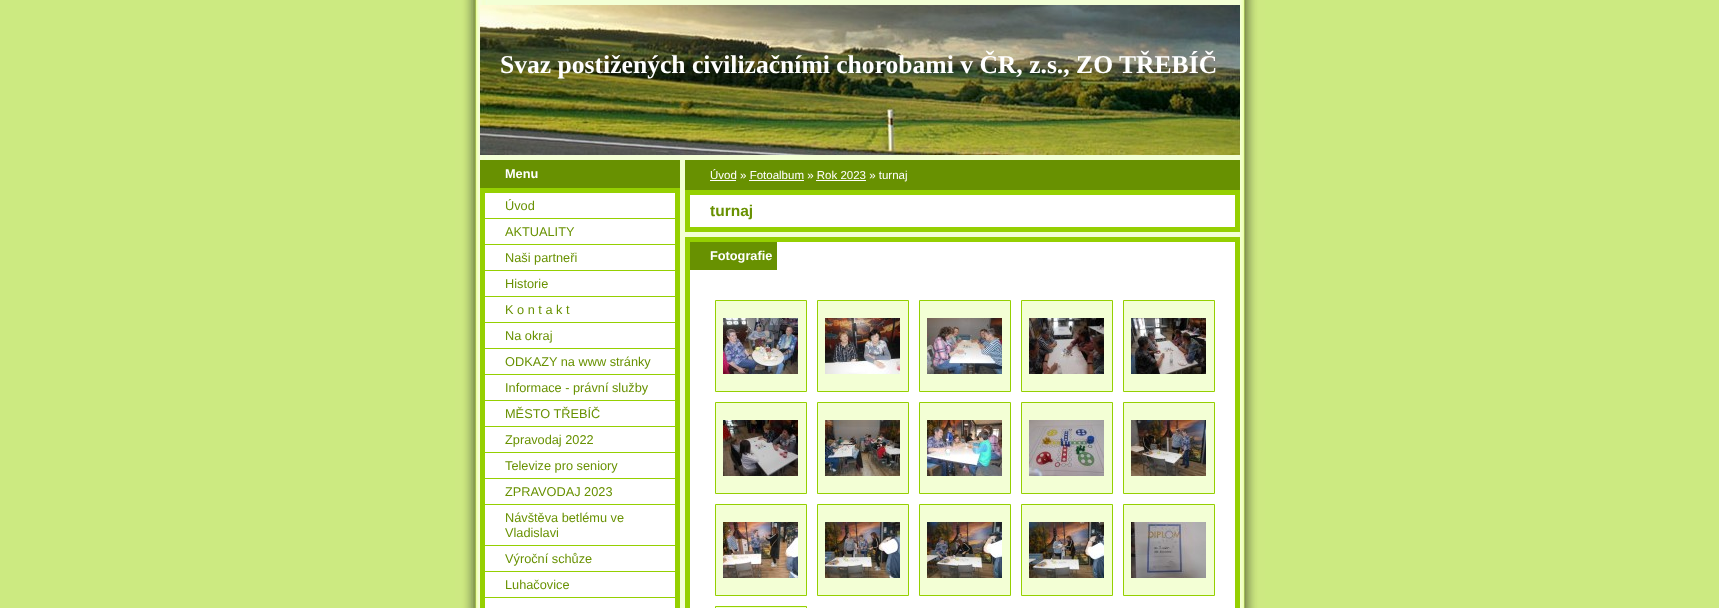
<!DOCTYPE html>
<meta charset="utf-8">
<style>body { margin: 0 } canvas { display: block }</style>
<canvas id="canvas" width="1719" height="608"></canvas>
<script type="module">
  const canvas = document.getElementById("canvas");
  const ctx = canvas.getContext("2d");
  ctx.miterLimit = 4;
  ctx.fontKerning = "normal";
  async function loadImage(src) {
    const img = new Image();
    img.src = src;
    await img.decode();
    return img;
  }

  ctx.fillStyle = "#ccea81";
  ctx.fillRect(0, 0, 1719, 608);
  ctx.drawImage(await loadImage("img1.png"), 455, 0, 810, 608);
  ctx.drawImage(await loadImage("img2.png"), 480, 5, 760, 150);
  ctx.font = "bold 25.6px Liberation Serif";
  ctx.fillStyle = "#ffffff";
  ctx.fillText("Svaz postižených civilizačními chorobami v ČR, z.s., ZO TŘEBÍČ", 500, 73);
  ctx.fillStyle = "#689101";
  ctx.fillRect(480, 160, 200, 28);
  ctx.font = "bold 12.75px Liberation Sans";
  ctx.fillStyle = "#ffffff";
  ctx.fillText("Menu", 505, 178);
  ctx.beginPath();
  ctx.rect(482.5, 190.5, 195, 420);
  ctx.fill();
  ctx.strokeStyle = "#95d001";
  ctx.lineWidth = 5;
  ctx.stroke();
  ctx.fillStyle = "#95d001";
  ctx.fillRect(485, 218, 190, 1);
  ctx.font = "12.75px Liberation Sans";
  ctx.fillStyle = "#689101";
  ctx.fillText("Úvod", 505, 210);
  ctx.fillStyle = "#95d001";
  ctx.fillRect(485, 244, 190, 1);
  ctx.fillStyle = "#689101";
  ctx.fillText("AKTUALITY", 505, 236);
  ctx.fillStyle = "#95d001";
  ctx.fillRect(485, 270, 190, 1);
  ctx.fillStyle = "#689101";
  ctx.fillText("Naši partneři", 505, 262);
  ctx.fillStyle = "#95d001";
  ctx.fillRect(485, 296, 190, 1);
  ctx.fillStyle = "#689101";
  ctx.fillText("Historie", 505, 288);
  ctx.fillStyle = "#95d001";
  ctx.fillRect(485, 322, 190, 1);
  ctx.fillStyle = "#689101";
  ctx.fillText("K o n t a k t", 505, 314);
  ctx.fillStyle = "#95d001";
  ctx.fillRect(485, 348, 190, 1);
  ctx.fillStyle = "#689101";
  ctx.fillText("Na okraj", 505, 340);
  ctx.fillStyle = "#95d001";
  ctx.fillRect(485, 374, 190, 1);
  ctx.fillStyle = "#689101";
  ctx.fillText("ODKAZY na www stránky", 505, 366);
  ctx.fillStyle = "#95d001";
  ctx.fillRect(485, 400, 190, 1);
  ctx.fillStyle = "#689101";
  ctx.fillText("Informace - právní služby", 505, 392);
  ctx.fillStyle = "#95d001";
  ctx.fillRect(485, 426, 190, 1);
  ctx.fillStyle = "#689101";
  ctx.fillText("MĚSTO TŘEBÍČ", 505, 418);
  ctx.fillStyle = "#95d001";
  ctx.fillRect(485, 452, 190, 1);
  ctx.fillStyle = "#689101";
  ctx.fillText("Zpravodaj 2022", 505, 444);
  ctx.fillStyle = "#95d001";
  ctx.fillRect(485, 478, 190, 1);
  ctx.fillStyle = "#689101";
  ctx.fillText("Televize pro seniory", 505, 470);
  ctx.fillStyle = "#95d001";
  ctx.fillRect(485, 504, 190, 1);
  ctx.fillStyle = "#689101";
  ctx.fillText("ZPRAVODAJ 2023", 505, 496);
  ctx.fillStyle = "#95d001";
  ctx.fillRect(485, 545, 190, 1);
  ctx.fillStyle = "#689101";
  ctx.fillText("Návštěva betlému ve", 505, 522);
  ctx.fillText("Vladislavi", 505, 537);
  ctx.fillStyle = "#95d001";
  ctx.fillRect(485, 571, 190, 1);
  ctx.fillStyle = "#689101";
  ctx.fillText("Výroční schůze", 505, 563);
  ctx.fillStyle = "#95d001";
  ctx.fillRect(485, 597, 190, 1);
  ctx.fillStyle = "#689101";
  ctx.fillText("Luhačovice", 505, 589);
  ctx.fillRect(685, 160, 555, 30);
  ctx.fillStyle = "#ffffff";
  ctx.fillRect(710, 180, 26, 1);
  ctx.font = "11.5px Liberation Sans";
  ctx.fillText("Úvod » Fotoalbum » Rok 2023 » turnaj", 710, 179);
  ctx.fillRect(749, 180, 55, 1);
  ctx.fillRect(816, 180, 50, 1);
  ctx.beginPath();
  ctx.rect(687.5, 192.5, 550, 37);
  ctx.fill();
  ctx.stroke();
  ctx.font = "bold 15.5px Liberation Sans";
  ctx.fillStyle = "#689101";
  ctx.fillText("turnaj", 710, 216);
  ctx.fillStyle = "#ffffff";
  ctx.beginPath();
  ctx.rect(687.5, 239.5, 550, 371);
  ctx.fill();
  ctx.stroke();
  ctx.fillStyle = "#689101";
  ctx.fillRect(690, 242, 87, 28);
  ctx.font = "bold 12.75px Liberation Sans";
  ctx.fillStyle = "#ffffff";
  ctx.fillText("Fotografie", 710, 260);
  ctx.fillStyle = "#f3ffd5";
  ctx.beginPath();
  ctx.rect(715.5, 300.5, 91, 91);
  ctx.fill();
  ctx.lineWidth = 1;
  ctx.stroke();
  ctx.drawImage(await loadImage("img3.png"), 723, 318, 75, 56);
  ctx.beginPath();
  ctx.rect(817.5, 300.5, 91, 91);
  ctx.fill();
  ctx.stroke();
  ctx.drawImage(await loadImage("img4.png"), 825, 318, 75, 56);
  ctx.beginPath();
  ctx.rect(919.5, 300.5, 91, 91);
  ctx.fill();
  ctx.stroke();
  ctx.drawImage(await loadImage("img5.png"), 927, 318, 75, 56);
  ctx.beginPath();
  ctx.rect(1021.5, 300.5, 91, 91);
  ctx.fill();
  ctx.stroke();
  ctx.drawImage(await loadImage("img6.png"), 1029, 318, 75, 56);
  ctx.beginPath();
  ctx.rect(1123.5, 300.5, 91, 91);
  ctx.fill();
  ctx.stroke();
  ctx.drawImage(await loadImage("img7.png"), 1131, 318, 75, 56);
  ctx.beginPath();
  ctx.rect(715.5, 402.5, 91, 91);
  ctx.fill();
  ctx.stroke();
  ctx.drawImage(await loadImage("img8.png"), 723, 420, 75, 56);
  ctx.beginPath();
  ctx.rect(817.5, 402.5, 91, 91);
  ctx.fill();
  ctx.stroke();
  ctx.drawImage(await loadImage("img9.png"), 825, 420, 75, 56);
  ctx.beginPath();
  ctx.rect(919.5, 402.5, 91, 91);
  ctx.fill();
  ctx.stroke();
  ctx.drawImage(await loadImage("img10.png"), 927, 420, 75, 56);
  ctx.beginPath();
  ctx.rect(1021.5, 402.5, 91, 91);
  ctx.fill();
  ctx.stroke();
  ctx.drawImage(await loadImage("img11.png"), 1029, 420, 75, 56);
  ctx.beginPath();
  ctx.rect(1123.5, 402.5, 91, 91);
  ctx.fill();
  ctx.stroke();
  ctx.drawImage(await loadImage("img12.png"), 1131, 420, 75, 56);
  ctx.beginPath();
  ctx.rect(715.5, 504.5, 91, 91);
  ctx.fill();
  ctx.stroke();
  ctx.drawImage(await loadImage("img13.png"), 723, 522, 75, 56);
  ctx.beginPath();
  ctx.rect(817.5, 504.5, 91, 91);
  ctx.fill();
  ctx.stroke();
  ctx.drawImage(await loadImage("img14.png"), 825, 522, 75, 56);
  ctx.beginPath();
  ctx.rect(919.5, 504.5, 91, 91);
  ctx.fill();
  ctx.stroke();
  ctx.drawImage(await loadImage("img15.png"), 927, 522, 75, 56);
  ctx.beginPath();
  ctx.rect(1021.5, 504.5, 91, 91);
  ctx.fill();
  ctx.stroke();
  ctx.drawImage(await loadImage("img16.png"), 1029, 522, 75, 56);
  ctx.beginPath();
  ctx.rect(1123.5, 504.5, 91, 91);
  ctx.fill();
  ctx.stroke();
  ctx.drawImage(await loadImage("img17.png"), 1131, 522, 75, 56);
  ctx.beginPath();
  ctx.rect(715.5, 606.5, 91, 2);
  ctx.fill();
  ctx.stroke();
</script>
